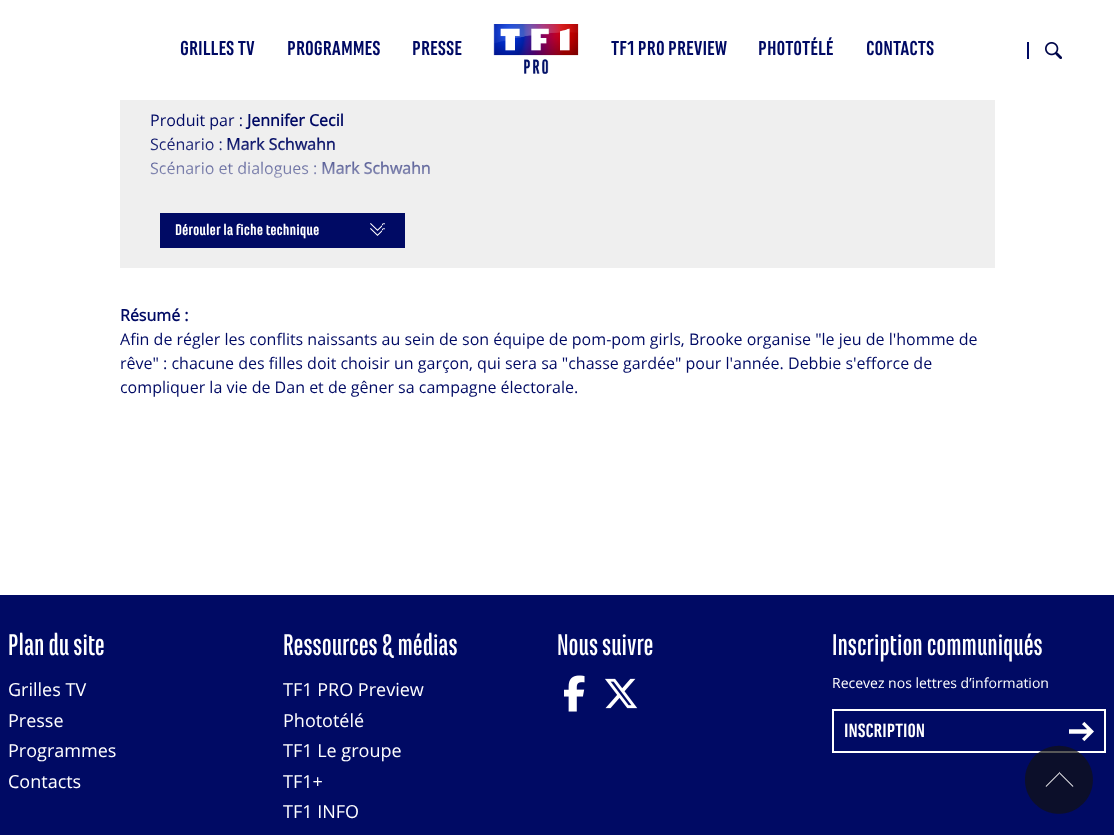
<!DOCTYPE html>
<meta charset="utf-8">
<style>body { margin: 0 } canvas { display: block }</style>
<canvas id="canvas" width="1114" height="835"></canvas>
<script type="module">
  const canvas = document.getElementById("canvas");
  const ctx = canvas.getContext("2d");
  ctx.miterLimit = 4;
  ctx.fontKerning = "normal";
  async function loadImage(src) {
    const img = new Image();
    img.src = src;
    await img.decode();
    return img;
  }
  let gradient;

  ctx.fillStyle = "#ffffff";
  ctx.fillRect(0, 0, 1114, 835);
  ctx.font = "bold 21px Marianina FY";
  ctx.fillStyle = "#000a64";
  ctx.fillText("GRILLES TV", 180, 55);
  ctx.fillText("PROGRAMMES", 287, 55);
  ctx.fillText("PRESSE", 412, 55);
  ctx.drawImage(await loadImage("img1.png"), 493, 24, 86, 50);
  ctx.fillText("TF1 PRO PREVIEW", 611, 55);
  ctx.fillText("PHOTOTÉLÉ", 758, 55);
  ctx.fillText("CONTACTS", 866, 55);
  ctx.drawImage(await loadImage("img2.png"), 1045, 42, 17, 17);
  ctx.fillRect(1027, 42, 2, 17);
  ctx.fillStyle = "#efefef";
  ctx.fillRect(120, 100, 875, 103);
  ctx.font = "16px Open Sans";
  ctx.fillStyle = "#000a64";
  ctx.fillText("Produit par :", 150, 126);
  ctx.font = "bold 16px Open Sans";
  ctx.fillText("Jennifer Cecil", 247, 126);
  ctx.font = "16px Open Sans";
  ctx.fillText("Scénario :", 150, 150);
  ctx.font = "bold 16px Open Sans";
  ctx.fillText("Mark Schwahn", 226, 150);
  ctx.font = "16px Open Sans";
  ctx.fillText("Scénario et dialogues :", 150, 174);
  ctx.font = "bold 16px Open Sans";
  ctx.fillText("Mark Schwahn", 321, 174);
  gradient = ctx.createLinearGradient(558, 138, 558, 268);
  gradient.addColorStop(0, "rgba(239, 239, 239, 0)");
  gradient.addColorStop(0.5, "#efefef");
  ctx.fillStyle = gradient;
  ctx.fillRect(120, 139, 875, 129);
  ctx.fillStyle = "#000a64";
  ctx.fillRect(160, 213, 245, 35);
  ctx.font = "bold 16px Marianina FY";
  ctx.fillStyle = "#ffffff";
  ctx.fillText("Dérouler la fiche technique", 175, 235);
  ctx.drawImage(await loadImage("img3.png"), 370, 223, 15, 13);
  ctx.font = "bold 16px Open Sans";
  ctx.fillStyle = "#000a64";
  ctx.fillText("Résumé :", 120, 321);
  ctx.font = "16px Open Sans";
  ctx.fillText("Afin de régler les conflits naissants au sein de son équipe de pom-pom girls, Brooke organise \"le jeu de l'homme de", 120, 345);
  ctx.fillText("rêve\" : chacune des filles doit choisir un garçon, qui sera sa \"chasse gardée\" pour l'année. Debbie s'efforce de", 120, 369);
  ctx.fillText("compliquer la vie de Dan et de gêner sa campagne électorale.", 120, 393);
  ctx.fillRect(0, 595, 1114, 240);
  ctx.font = "500 31.25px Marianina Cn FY";
  ctx.fillStyle = "#ffffff";
  ctx.fillText("Plan du site", 8, 655);
  ctx.font = "18px Open Sans";
  ctx.fillText("Grilles TV", 8, 696);
  ctx.fillText("Presse", 8, 727);
  ctx.fillText("Programmes", 8, 757);
  ctx.fillText("Contacts", 8, 788);
  ctx.font = "500 31.25px Marianina Cn FY";
  ctx.fillText("Ressources & médias", 283, 655);
  ctx.font = "18px Open Sans";
  ctx.fillText("TF1 PRO Preview", 283, 696);
  ctx.fillText("Phototélé", 283, 727);
  ctx.fillText("TF1 Le groupe", 283, 757);
  ctx.fillText("TF1+", 283, 788);
  ctx.fillText("TF1 INFO", 283, 818);
  ctx.font = "500 31.25px Marianina Cn FY";
  ctx.fillText("Nous suivre", 557, 655);
  ctx.drawImage(await loadImage("img4.png"), 564, 675, 21, 37);
  ctx.drawImage(await loadImage("img5.png"), 605, 678, 33, 31);
  ctx.fillText("Inscription communiqués", 832, 655);
  ctx.font = "14px Open Sans";
  ctx.fillText("Recevez nos lettres d’information", 832, 688);
  ctx.strokeStyle = "#ffffff";
  ctx.lineWidth = 2;
  ctx.strokeRect(833, 710, 272, 42);
  ctx.drawImage(await loadImage("img6.png"), 1069, 721, 25, 21);
  ctx.font = "bold 20px Marianina FY";
  ctx.fillText("INSCRIPTION", 844, 737);
  ctx.drawImage(await loadImage("img7.png"), 1025, 745, 68, 69);
</script>
